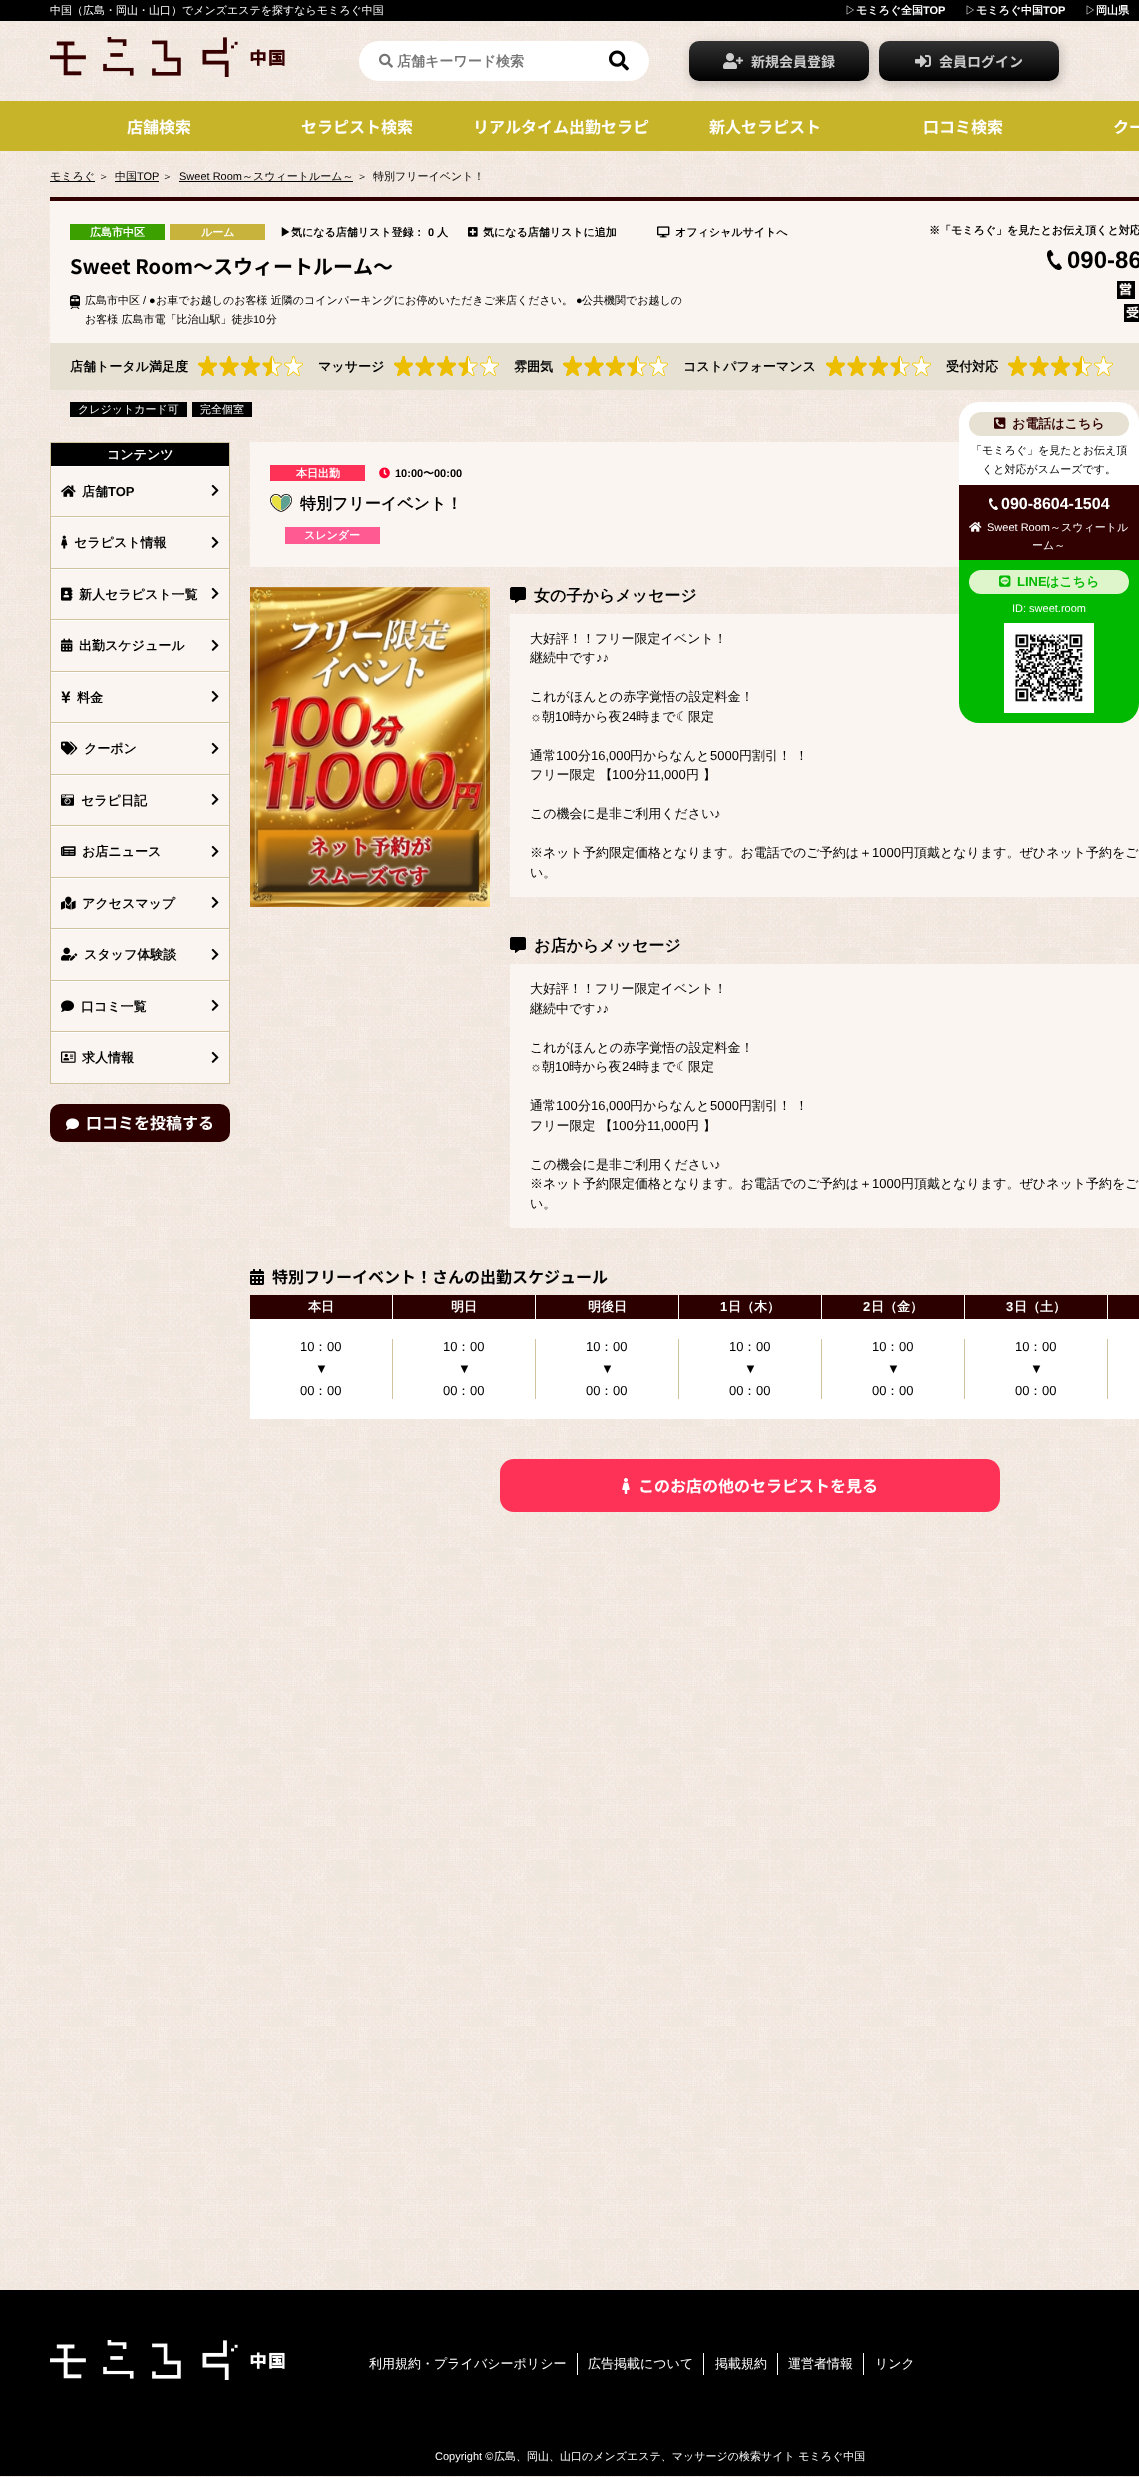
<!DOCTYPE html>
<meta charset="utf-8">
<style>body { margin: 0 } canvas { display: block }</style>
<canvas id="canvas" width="1139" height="2477"></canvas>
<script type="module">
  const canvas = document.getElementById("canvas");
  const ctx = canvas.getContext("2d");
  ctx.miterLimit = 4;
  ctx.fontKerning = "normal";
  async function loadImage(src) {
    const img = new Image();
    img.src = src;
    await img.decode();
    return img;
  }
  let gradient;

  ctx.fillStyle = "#ffffff";
  ctx.fillRect(0, 0, 1139, 2477);
  ctx.drawImage(await loadImage("img1.png"), 0, 21, 1139, 2456);
  ctx.fillStyle = "#000000";
  ctx.fillRect(0, 0, 1139, 21);
  ctx.font = "500 11px WenQuanYi Zen Hei";
  ctx.fillStyle = "#ffffff";
  ctx.fillText("中国（広島・岡山・山口）でメンズエステを探すならモミろぐ中国", 50, 14);
  ctx.fillText("▷", 845, 14);
  ctx.font = "bold 11px WenQuanYi Zen Hei";
  ctx.fillText("モミろぐ全国", 856, 14);
  ctx.font = "bold 11px Liberation Sans";
  ctx.fillText("TOP", 923, 14);
  ctx.font = "500 11px WenQuanYi Zen Hei";
  ctx.fillText("▷", 965, 14);
  ctx.font = "bold 11px WenQuanYi Zen Hei";
  ctx.fillText("モミろぐ中国", 976, 14);
  ctx.font = "bold 11px Liberation Sans";
  ctx.fillText("TOP", 1043, 14);
  ctx.font = "500 11px WenQuanYi Zen Hei";
  ctx.fillText("▷", 1085, 14);
  ctx.font = "bold 11px WenQuanYi Zen Hei";
  ctx.fillText("岡山県", 1096, 14);
  ctx.drawImage(await loadImage("img2.png"), 50, 37, 235, 40);
  ctx.beginPath();
  ctx.roundRect(359, 41, 290, 40, 20);
  ctx.fill();
  ctx.drawImage(await loadImage("img3.png"), 379, 53, 14, 15);
  ctx.font = "bold 14px WenQuanYi Zen Hei";
  ctx.fillStyle = "#757575";
  ctx.fillText("店舗キーワード検索", 397, 66);
  ctx.drawImage(await loadImage("img4.png"), 609, 50, 20, 21);
  ctx.fillStyle = "rgba(0, 0, 0, 0.15)";
  ctx.filter = "blur(4px)";
  ctx.beginPath();
  ctx.roundRect(689, 42, 184, 44, 12);
  ctx.fill();
  ctx.filter = "none";
  gradient = ctx.createLinearGradient(779, 81, 779, 41);
  gradient.addColorStop(0, "#000000");
  gradient.addColorStop(1, "#323232");
  ctx.fillStyle = gradient;
  ctx.beginPath();
  ctx.roundRect(689, 41, 180, 40, 10);
  ctx.fill();
  ctx.drawImage(await loadImage("img5.png"), 723, 53, 20, 16);
  ctx.font = "bold 14px Noto Sans JP";
  ctx.fillStyle = "#cccccc";
  ctx.fillText("新規会員登録", 751, 67);
  ctx.fillStyle = "rgba(0, 0, 0, 0.15)";
  ctx.filter = "blur(4px)";
  ctx.beginPath();
  ctx.roundRect(879, 42, 184, 44, 12);
  ctx.fill();
  ctx.filter = "none";
  gradient = ctx.createLinearGradient(969, 81, 969, 41);
  gradient.addColorStop(0, "#000000");
  gradient.addColorStop(1, "#323232");
  ctx.fillStyle = gradient;
  ctx.beginPath();
  ctx.roundRect(879, 41, 180, 40, 10);
  ctx.fill();
  ctx.drawImage(await loadImage("img6.png"), 915, 55, 16, 13);
  ctx.fillStyle = "#cccccc";
  ctx.fillText("会員ログイン", 939, 67);
  ctx.fillStyle = "#c8b428";
  ctx.fillRect(0, 101, 1139, 50);
  ctx.font = "bold 16px Noto Sans JP";
  ctx.fillStyle = "#ffffff";
  ctx.fillText("店舗検索", 127, 133);
  ctx.fillText("セラピスト検索", 301, 133);
  ctx.fillText("リアルタイム出勤セラピ", 473, 133);
  ctx.fillText("新人セラピスト", 709, 133);
  ctx.fillText("口コミ検索", 923, 133);
  ctx.fillText("クー", 1113, 133);
  ctx.fillStyle = "#000000";
  ctx.fillRect(50, 181, 45, 1);
  ctx.font = "500 11px WenQuanYi Zen Hei";
  ctx.fillText("モミろぐ ＞", 50, 180);
  ctx.fillRect(115, 181, 44, 1);
  ctx.fillText("中国", 115, 180);
  ctx.font = "11px Liberation Sans";
  ctx.fillText("TOP", 137, 180);
  ctx.font = "500 11px WenQuanYi Zen Hei";
  ctx.fillText("＞", 162, 180);
  ctx.font = "11px Liberation Sans";
  ctx.fillText("Sweet Room", 179, 180);
  ctx.fillRect(179, 181, 174, 1);
  ctx.font = "500 11px WenQuanYi Zen Hei";
  ctx.fillText("～スウィートルーム～ ＞", 242, 180);
  ctx.fillText("特別フリーイベント！", 373, 180);
  ctx.fillStyle = "#faf5f0";
  ctx.fillRect(50, 201, 1089, 142);
  ctx.fillStyle = "#310000";
  ctx.fillRect(50, 197, 1089, 4);
  ctx.fillStyle = "#3ca000";
  ctx.fillRect(70, 224, 95, 16);
  ctx.font = "bold 11px WenQuanYi Zen Hei";
  ctx.fillStyle = "#ffffff";
  ctx.fillText("広島市中区", 90, 236);
  ctx.fillStyle = "#c8b43c";
  ctx.fillRect(170, 224, 95, 16);
  ctx.fillStyle = "#ffffff";
  ctx.fillText("ルーム", 201, 236);
  ctx.fillStyle = "#000000";
  ctx.fillText("▶気になる店舗リスト登録：", 280, 236);
  ctx.font = "bold 11px Liberation Sans";
  ctx.fillText("0", 428, 236);
  ctx.font = "bold 11px WenQuanYi Zen Hei";
  ctx.fillText("人", 437, 236);
  ctx.drawImage(await loadImage("img7.png"), 468, 227, 10, 10);
  ctx.fillText("気になる店舗リストに追加", 483, 236);
  ctx.drawImage(await loadImage("img8.png"), 657, 226, 13, 12);
  ctx.fillText("オフィシャルサイトへ", 675, 236);
  ctx.font = "bold 20px Noto Sans JP";
  ctx.fillText("Sweet Room～スウィートルーム～", 70, 274);
  ctx.drawImage(await loadImage("img9.png"), 70, 295, 10, 14);
  ctx.font = "500 11px WenQuanYi Zen Hei";
  ctx.fillText("広島市中区", 85, 304);
  ctx.font = "11px Liberation Sans";
  ctx.fillText("/ ●", 143, 304);
  ctx.font = "500 11px WenQuanYi Zen Hei";
  ctx.fillText("お車でお越しのお客様 近隣のコインパーキングにお停めいただきご来店ください。", 156, 304);
  ctx.font = "11px Liberation Sans";
  ctx.fillText("●", 576, 304);
  ctx.font = "500 11px WenQuanYi Zen Hei";
  ctx.fillText("公共機関でお越しの", 582, 304);
  ctx.fillText("お客様 広島市電「比治山駅」徒歩", 85, 323);
  ctx.font = "11px Liberation Sans";
  ctx.fillText("10", 253, 323);
  ctx.font = "500 11px WenQuanYi Zen Hei";
  ctx.fillText("分", 266, 323);
  ctx.font = "bold 11px WenQuanYi Zen Hei";
  ctx.fillText("※「モミろぐ」を見たとお伝え頂くと対応", 929, 234);
  ctx.drawImage(await loadImage("img10.png"), 1047, 250, 15, 20);
  ctx.font = "bold 24px Liberation Sans";
  ctx.fillText("090-86", 1067, 268);
  ctx.fillRect(1117, 281, 18, 18);
  ctx.font = "bold 13px 'M PLUS 1p'";
  ctx.fillStyle = "#faf5f0";
  ctx.save();
  ctx.translate(1119, 294);
  ctx.rotate(0.1 * Math.PI / 180);
  ctx.fillText("営", 0, 0);
  ctx.restore();
  ctx.fillStyle = "#000000";
  ctx.fillRect(1124, 304, 15, 18);
  ctx.fillStyle = "#faf5f0";
  ctx.save();
  ctx.translate(1126, 317);
  ctx.rotate(0.1 * Math.PI / 180);
  ctx.fillText("受", 0, 0);
  ctx.restore();
  ctx.fillStyle = "#e6e1d2";
  ctx.fillRect(50, 343, 1089, 47);
  ctx.font = "bold 13px WenQuanYi Zen Hei";
  ctx.fillStyle = "#000000";
  ctx.fillText("店舗トータル満足度", 70, 371);
  ctx.drawImage(await loadImage("img11.png"), 198, 356, 105, 20);
  ctx.fillText("マッサージ", 318, 371);
  ctx.drawImage(await loadImage("img11.png"), 394, 356, 105, 20);
  ctx.fillText("雰囲気", 514, 371);
  ctx.drawImage(await loadImage("img11.png"), 563, 356, 105, 20);
  ctx.fillText("コストパフォーマンス", 683, 371);
  ctx.drawImage(await loadImage("img11.png"), 826, 356, 105, 20);
  ctx.fillText("受付対応", 946, 371);
  ctx.drawImage(await loadImage("img11.png"), 1008, 356, 105, 20);
  ctx.fillRect(70, 402, 117, 15);
  ctx.font = "500 11px WenQuanYi Zen Hei";
  ctx.fillStyle = "#ffffff";
  ctx.fillText("クレジットカード可", 78, 413);
  ctx.fillStyle = "#000000";
  ctx.fillRect(192, 402, 60, 15);
  ctx.fillStyle = "#ffffff";
  ctx.fillText("完全個室", 200, 413);
  ctx.fillStyle = "#faf5f0";
  ctx.fillRect(51, 467, 178, 616);
  ctx.fillStyle = "#d2c3a0";
  ctx.fillRect(50, 442, 180, 1);
  ctx.fillRect(229, 442, 1, 642);
  ctx.fillRect(50, 442, 1, 642);
  ctx.fillStyle = "#000000";
  ctx.fillRect(51, 443, 178, 23);
  ctx.font = "bold 13px WenQuanYi Zen Hei";
  ctx.fillStyle = "#ffffff";
  ctx.fillText("コンテンツ", 107, 459);
  ctx.fillRect(51, 466, 178, 1);
  ctx.fillStyle = "#d2c3a0";
  ctx.fillRect(51, 516, 178, 1);
  ctx.drawImage(await loadImage("img12.png"), 61, 485, 15, 12);
  ctx.fillStyle = "#000000";
  ctx.fillText("店舗", 82, 496);
  ctx.font = "bold 13px Liberation Sans";
  ctx.fillText("TOP", 108, 496);
  ctx.drawImage(await loadImage("img13.png"), 211, 484, 8, 12);
  ctx.fillStyle = "#ffffff";
  ctx.fillRect(51, 517, 178, 1);
  ctx.fillStyle = "#d2c3a0";
  ctx.fillRect(51, 568, 178, 1);
  ctx.drawImage(await loadImage("img14.png"), 61, 535, 7, 14);
  ctx.font = "bold 13px WenQuanYi Zen Hei";
  ctx.fillStyle = "#000000";
  ctx.fillText("セラピスト情報", 74, 547);
  ctx.drawImage(await loadImage("img13.png"), 211, 536, 8, 12);
  ctx.fillStyle = "#ffffff";
  ctx.fillRect(51, 569, 178, 1);
  ctx.fillStyle = "#d2c3a0";
  ctx.fillRect(51, 619, 178, 1);
  ctx.drawImage(await loadImage("img15.png"), 61, 587, 12, 14);
  ctx.fillStyle = "#000000";
  ctx.fillText("新人セラピスト一覧", 79, 599);
  ctx.drawImage(await loadImage("img13.png"), 211, 587, 8, 12);
  ctx.fillStyle = "#ffffff";
  ctx.fillRect(51, 620, 178, 1);
  ctx.fillStyle = "#d2c3a0";
  ctx.fillRect(51, 671, 178, 1);
  ctx.drawImage(await loadImage("img16.png"), 61, 638, 12, 14);
  ctx.fillStyle = "#000000";
  ctx.fillText("出勤スケジュール", 79, 650);
  ctx.drawImage(await loadImage("img13.png"), 211, 639, 8, 12);
  ctx.fillStyle = "#ffffff";
  ctx.fillRect(51, 672, 178, 1);
  ctx.fillStyle = "#d2c3a0";
  ctx.fillRect(51, 722, 178, 1);
  ctx.drawImage(await loadImage("img17.png"), 61, 691, 10, 12);
  ctx.fillStyle = "#000000";
  ctx.fillText("料金", 77, 702);
  ctx.drawImage(await loadImage("img13.png"), 211, 690, 8, 12);
  ctx.fillStyle = "#ffffff";
  ctx.fillRect(51, 723, 178, 1);
  ctx.fillStyle = "#d2c3a0";
  ctx.fillRect(51, 774, 178, 1);
  ctx.drawImage(await loadImage("img18.png"), 61, 741, 17, 14);
  ctx.fillStyle = "#000000";
  ctx.fillText("クーポン", 84, 753);
  ctx.drawImage(await loadImage("img13.png"), 211, 742, 8, 12);
  ctx.fillStyle = "#ffffff";
  ctx.fillRect(51, 775, 178, 1);
  ctx.fillStyle = "#d2c3a0";
  ctx.fillRect(51, 825, 178, 1);
  ctx.drawImage(await loadImage("img19.png"), 61, 794, 13, 12);
  ctx.fillStyle = "#000000";
  ctx.fillText("セラピ日記", 81, 805);
  ctx.drawImage(await loadImage("img13.png"), 211, 793, 8, 12);
  ctx.fillStyle = "#ffffff";
  ctx.fillRect(51, 826, 178, 1);
  ctx.fillStyle = "#d2c3a0";
  ctx.fillRect(51, 877, 178, 1);
  ctx.drawImage(await loadImage("img20.png"), 61, 846, 15, 10);
  ctx.fillStyle = "#000000";
  ctx.fillText("お店ニュース", 82, 856);
  ctx.drawImage(await loadImage("img13.png"), 211, 845, 8, 12);
  ctx.fillStyle = "#ffffff";
  ctx.fillRect(51, 878, 178, 1);
  ctx.fillStyle = "#d2c3a0";
  ctx.fillRect(51, 928, 178, 1);
  ctx.drawImage(await loadImage("img21.png"), 61, 896, 15, 14);
  ctx.fillStyle = "#000000";
  ctx.fillText("アクセスマップ", 82, 908);
  ctx.drawImage(await loadImage("img13.png"), 211, 896, 8, 12);
  ctx.fillStyle = "#ffffff";
  ctx.fillRect(51, 929, 178, 1);
  ctx.fillStyle = "#d2c3a0";
  ctx.fillRect(51, 980, 178, 1);
  ctx.drawImage(await loadImage("img22.png"), 61, 947, 17, 14);
  ctx.fillStyle = "#000000";
  ctx.fillText("スタッフ体験談", 84, 959);
  ctx.drawImage(await loadImage("img13.png"), 211, 948, 8, 12);
  ctx.fillStyle = "#ffffff";
  ctx.fillRect(51, 981, 178, 1);
  ctx.fillStyle = "#d2c3a0";
  ctx.fillRect(51, 1031, 178, 1);
  ctx.drawImage(await loadImage("img23.png"), 61, 1000, 13, 12);
  ctx.fillStyle = "#000000";
  ctx.fillText("口コミ一覧", 81, 1011);
  ctx.drawImage(await loadImage("img13.png"), 211, 999, 8, 12);
  ctx.fillStyle = "#ffffff";
  ctx.fillRect(51, 1032, 178, 1);
  ctx.fillStyle = "#d2c3a0";
  ctx.fillRect(51, 1083, 178, 1);
  ctx.drawImage(await loadImage("img24.png"), 61, 1051, 15, 12);
  ctx.fillStyle = "#000000";
  ctx.fillText("求人情報", 82, 1062);
  ctx.drawImage(await loadImage("img13.png"), 211, 1051, 8, 12);
  ctx.fillStyle = "#2d0000";
  ctx.beginPath();
  ctx.roundRect(50, 1104, 180, 38, 10);
  ctx.fill();
  ctx.drawImage(await loadImage("img25.png"), 66, 1118, 13, 12);
  ctx.font = "bold 16px Noto Sans JP";
  ctx.fillStyle = "#ffffff";
  ctx.fillText("口コミを投稿する", 86, 1129);
  ctx.fillStyle = "#faf5f0";
  ctx.fillRect(250, 442, 709, 125);
  ctx.fillStyle = "#fe3156";
  ctx.fillRect(270, 465, 95, 16);
  ctx.font = "bold 11px WenQuanYi Zen Hei";
  ctx.fillStyle = "#ffffff";
  ctx.fillText("本日出勤", 296, 477);
  ctx.drawImage(await loadImage("img26.png"), 379, 467, 11, 12);
  ctx.font = "bold 11px Liberation Sans";
  ctx.fillStyle = "#000000";
  ctx.fillText("10:00", 395, 477);
  ctx.font = "bold 11px WenQuanYi Zen Hei";
  ctx.fillText("〜", 423, 477);
  ctx.font = "bold 11px Liberation Sans";
  ctx.fillText("00:00", 434, 477);
  ctx.drawImage(await loadImage("img27.png"), 270, 494, 22, 18);
  ctx.font = "bold 16px WenQuanYi Zen Hei";
  ctx.fillText("特別フリーイベント！", 300, 509);
  ctx.fillStyle = "#ff5a91";
  ctx.fillRect(285, 527, 95, 17);
  ctx.font = "bold 11px WenQuanYi Zen Hei";
  ctx.fillStyle = "#ffffff";
  ctx.fillText("スレンダー", 304, 539);
  ctx.drawImage(await loadImage("img28.png"), 250, 587, 240, 320);
  ctx.drawImage(await loadImage("img29.png"), 510, 587, 16, 16);
  ctx.font = "bold 16px WenQuanYi Zen Hei";
  ctx.fillStyle = "#000000";
  ctx.fillText("女の子からメッセージ", 534, 601);
  ctx.fillStyle = "#faf5f0";
  ctx.fillRect(510, 614, 629, 283);
  ctx.font = "500 13px WenQuanYi Zen Hei";
  ctx.fillStyle = "#000000";
  ctx.fillText("大好評！！フリー限定イベント！", 530, 643);
  ctx.fillText("継続中です", 530, 662);
  ctx.font = "13px Liberation Sans";
  ctx.fillText("♪♪", 596, 662);
  ctx.font = "500 13px WenQuanYi Zen Hei";
  ctx.fillText("これがほんとの赤字覚悟の設定料金！", 530, 701);
  ctx.font = "13px Liberation Sans";
  ctx.fillText("☼", 530, 721);
  ctx.font = "500 13px WenQuanYi Zen Hei";
  ctx.fillText("朝", 542, 721);
  ctx.font = "13px Liberation Sans";
  ctx.fillText("10", 555, 721);
  ctx.font = "500 13px WenQuanYi Zen Hei";
  ctx.fillText("時から夜", 569, 721);
  ctx.font = "13px Liberation Sans";
  ctx.fillText("24", 622, 721);
  ctx.font = "500 13px WenQuanYi Zen Hei";
  ctx.fillText("時まで", 636, 721);
  ctx.font = "13px DejaVu Sans";
  ctx.fillText("☾", 676, 721);
  ctx.font = "500 13px WenQuanYi Zen Hei";
  ctx.fillText("限定", 688, 721);
  ctx.fillText("通常", 530, 760);
  ctx.font = "13px Liberation Sans";
  ctx.fillText("100", 556, 760);
  ctx.font = "500 13px WenQuanYi Zen Hei";
  ctx.fillText("分", 578, 760);
  ctx.font = "13px Liberation Sans";
  ctx.fillText("16,000", 591, 760);
  ctx.font = "500 13px WenQuanYi Zen Hei";
  ctx.fillText("円からなんと", 630, 760);
  ctx.font = "13px Liberation Sans";
  ctx.fillText("5000", 710, 760);
  ctx.font = "500 13px WenQuanYi Zen Hei";
  ctx.fillText("円割引！ ！", 739, 760);
  ctx.fillText("フリー限定 【", 530, 779);
  ctx.font = "13px Liberation Sans";
  ctx.fillText("100", 612, 779);
  ctx.font = "500 13px WenQuanYi Zen Hei";
  ctx.fillText("分", 634, 779);
  ctx.font = "13px Liberation Sans";
  ctx.fillText("11,000", 647, 779);
  ctx.font = "500 13px WenQuanYi Zen Hei";
  ctx.fillText("円 】", 686, 779);
  ctx.fillText("この機会に是非ご利用ください", 530, 818);
  ctx.font = "13px Liberation Sans";
  ctx.fillText("♪", 714, 818);
  ctx.font = "500 13px WenQuanYi Zen Hei";
  ctx.fillText("※ネット予約限定価格となります。お電話でのご予約は＋", 530, 857);
  ctx.font = "13px Liberation Sans";
  ctx.fillText("1000", 872, 857);
  ctx.font = "500 13px WenQuanYi Zen Hei";
  ctx.fillText("円頂戴となります。ぜひネット予約をご", 901, 857);
  ctx.fillText("い。", 530, 877);
  ctx.drawImage(await loadImage("img30.png"), 510, 937, 16, 16);
  ctx.font = "bold 16px WenQuanYi Zen Hei";
  ctx.fillText("お店からメッセージ", 534, 951);
  ctx.fillStyle = "#faf5f0";
  ctx.fillRect(510, 964, 629, 264);
  ctx.font = "500 13px WenQuanYi Zen Hei";
  ctx.fillStyle = "#000000";
  ctx.fillText("大好評！！フリー限定イベント！", 530, 993);
  ctx.fillText("継続中です", 530, 1013);
  ctx.font = "13px Liberation Sans";
  ctx.fillText("♪♪", 596, 1013);
  ctx.font = "500 13px WenQuanYi Zen Hei";
  ctx.fillText("これがほんとの赤字覚悟の設定料金！", 530, 1052);
  ctx.font = "13px Liberation Sans";
  ctx.fillText("☼", 530, 1071);
  ctx.font = "500 13px WenQuanYi Zen Hei";
  ctx.fillText("朝", 542, 1071);
  ctx.font = "13px Liberation Sans";
  ctx.fillText("10", 555, 1071);
  ctx.font = "500 13px WenQuanYi Zen Hei";
  ctx.fillText("時から夜", 569, 1071);
  ctx.font = "13px Liberation Sans";
  ctx.fillText("24", 622, 1071);
  ctx.font = "500 13px WenQuanYi Zen Hei";
  ctx.fillText("時まで", 636, 1071);
  ctx.font = "13px DejaVu Sans";
  ctx.fillText("☾", 676, 1071);
  ctx.font = "500 13px WenQuanYi Zen Hei";
  ctx.fillText("限定", 688, 1071);
  ctx.fillText("通常", 530, 1110);
  ctx.font = "13px Liberation Sans";
  ctx.fillText("100", 556, 1110);
  ctx.font = "500 13px WenQuanYi Zen Hei";
  ctx.fillText("分", 578, 1110);
  ctx.font = "13px Liberation Sans";
  ctx.fillText("16,000", 591, 1110);
  ctx.font = "500 13px WenQuanYi Zen Hei";
  ctx.fillText("円からなんと", 630, 1110);
  ctx.font = "13px Liberation Sans";
  ctx.fillText("5000", 710, 1110);
  ctx.font = "500 13px WenQuanYi Zen Hei";
  ctx.fillText("円割引！ ！", 739, 1110);
  ctx.fillText("フリー限定 【", 530, 1130);
  ctx.font = "13px Liberation Sans";
  ctx.fillText("100", 612, 1130);
  ctx.font = "500 13px WenQuanYi Zen Hei";
  ctx.fillText("分", 634, 1130);
  ctx.font = "13px Liberation Sans";
  ctx.fillText("11,000", 647, 1130);
  ctx.font = "500 13px WenQuanYi Zen Hei";
  ctx.fillText("円 】", 686, 1130);
  ctx.fillText("この機会に是非ご利用ください", 530, 1169);
  ctx.font = "13px Liberation Sans";
  ctx.fillText("♪", 714, 1169);
  ctx.font = "500 13px WenQuanYi Zen Hei";
  ctx.fillText("※ネット予約限定価格となります。お電話でのご予約は＋", 530, 1188);
  ctx.font = "13px Liberation Sans";
  ctx.fillText("1000", 872, 1188);
  ctx.font = "500 13px WenQuanYi Zen Hei";
  ctx.fillText("円頂戴となります。ぜひネット予約をご", 901, 1188);
  ctx.fillText("い。", 530, 1208);
  ctx.drawImage(await loadImage("img31.png"), 250, 1269, 14, 16);
  ctx.font = "bold 16px Noto Sans JP";
  ctx.fillText("特別フリーイベント！さんの出勤スケジュール", 272, 1283);
  ctx.fillStyle = "#ffffff";
  ctx.fillRect(250, 1319, 889, 100);
  ctx.fillStyle = "#2d0000";
  ctx.fillRect(250, 1295, 142, 24);
  ctx.font = "bold 13px WenQuanYi Zen Hei";
  ctx.fillStyle = "#ffffff";
  ctx.fillText("本日", 308, 1311);
  ctx.font = "13px Liberation Sans";
  ctx.fillStyle = "#000000";
  ctx.fillText("10", 300, 1351);
  ctx.font = "500 13px WenQuanYi Zen Hei";
  ctx.fillText("：", 314, 1351);
  ctx.font = "13px Liberation Sans";
  ctx.fillText("00", 327, 1351);
  ctx.fillText("▼", 315, 1373);
  ctx.fillText("00", 300, 1395);
  ctx.font = "500 13px WenQuanYi Zen Hei";
  ctx.fillText("：", 314, 1395);
  ctx.font = "13px Liberation Sans";
  ctx.fillText("00", 327, 1395);
  ctx.fillStyle = "#2d0000";
  ctx.fillRect(393, 1295, 142, 24);
  ctx.fillStyle = "#ffffff";
  ctx.fillRect(392, 1295, 1, 24);
  ctx.font = "bold 13px WenQuanYi Zen Hei";
  ctx.fillText("明日", 451, 1311);
  ctx.fillStyle = "#d2c3a0";
  ctx.fillRect(392, 1339, 1, 60);
  ctx.font = "13px Liberation Sans";
  ctx.fillStyle = "#000000";
  ctx.fillText("10", 443, 1351);
  ctx.font = "500 13px WenQuanYi Zen Hei";
  ctx.fillText("：", 457, 1351);
  ctx.font = "13px Liberation Sans";
  ctx.fillText("00", 470, 1351);
  ctx.fillText("▼", 458, 1373);
  ctx.fillText("00", 443, 1395);
  ctx.font = "500 13px WenQuanYi Zen Hei";
  ctx.fillText("：", 457, 1395);
  ctx.font = "13px Liberation Sans";
  ctx.fillText("00", 470, 1395);
  ctx.fillStyle = "#2d0000";
  ctx.fillRect(536, 1295, 142, 24);
  ctx.fillStyle = "#ffffff";
  ctx.fillRect(535, 1295, 1, 24);
  ctx.font = "bold 13px WenQuanYi Zen Hei";
  ctx.fillText("明後日", 588, 1311);
  ctx.fillStyle = "#d2c3a0";
  ctx.fillRect(535, 1339, 1, 60);
  ctx.font = "13px Liberation Sans";
  ctx.fillStyle = "#000000";
  ctx.fillText("10", 586, 1351);
  ctx.font = "500 13px WenQuanYi Zen Hei";
  ctx.fillText("：", 600, 1351);
  ctx.font = "13px Liberation Sans";
  ctx.fillText("00", 613, 1351);
  ctx.fillText("▼", 601, 1373);
  ctx.fillText("00", 586, 1395);
  ctx.font = "500 13px WenQuanYi Zen Hei";
  ctx.fillText("：", 600, 1395);
  ctx.font = "13px Liberation Sans";
  ctx.fillText("00", 613, 1395);
  ctx.fillStyle = "#2d0000";
  ctx.fillRect(679, 1295, 142, 24);
  ctx.fillStyle = "#ffffff";
  ctx.fillRect(678, 1295, 1, 24);
  ctx.font = "bold 13px Liberation Sans";
  ctx.fillText("1", 720, 1311);
  ctx.font = "bold 13px WenQuanYi Zen Hei";
  ctx.fillText("日（木）", 728, 1311);
  ctx.fillStyle = "#d2c3a0";
  ctx.fillRect(678, 1339, 1, 60);
  ctx.font = "13px Liberation Sans";
  ctx.fillStyle = "#000000";
  ctx.fillText("10", 729, 1351);
  ctx.font = "500 13px WenQuanYi Zen Hei";
  ctx.fillText("：", 743, 1351);
  ctx.font = "13px Liberation Sans";
  ctx.fillText("00", 756, 1351);
  ctx.fillText("▼", 744, 1373);
  ctx.fillText("00", 729, 1395);
  ctx.font = "500 13px WenQuanYi Zen Hei";
  ctx.fillText("：", 743, 1395);
  ctx.font = "13px Liberation Sans";
  ctx.fillText("00", 756, 1395);
  ctx.fillStyle = "#2d0000";
  ctx.fillRect(822, 1295, 142, 24);
  ctx.fillStyle = "#ffffff";
  ctx.fillRect(821, 1295, 1, 24);
  ctx.font = "bold 13px Liberation Sans";
  ctx.fillText("2", 863, 1311);
  ctx.font = "bold 13px WenQuanYi Zen Hei";
  ctx.fillText("日（金）", 871, 1311);
  ctx.fillStyle = "#d2c3a0";
  ctx.fillRect(821, 1339, 1, 60);
  ctx.font = "13px Liberation Sans";
  ctx.fillStyle = "#000000";
  ctx.fillText("10", 872, 1351);
  ctx.font = "500 13px WenQuanYi Zen Hei";
  ctx.fillText("：", 886, 1351);
  ctx.font = "13px Liberation Sans";
  ctx.fillText("00", 899, 1351);
  ctx.fillText("▼", 887, 1373);
  ctx.fillText("00", 872, 1395);
  ctx.font = "500 13px WenQuanYi Zen Hei";
  ctx.fillText("：", 886, 1395);
  ctx.font = "13px Liberation Sans";
  ctx.fillText("00", 899, 1395);
  ctx.fillStyle = "#2d0000";
  ctx.fillRect(965, 1295, 142, 24);
  ctx.fillStyle = "#ffffff";
  ctx.fillRect(964, 1295, 1, 24);
  ctx.font = "bold 13px Liberation Sans";
  ctx.fillText("3", 1006, 1311);
  ctx.font = "bold 13px WenQuanYi Zen Hei";
  ctx.fillText("日（土）", 1014, 1311);
  ctx.fillStyle = "#d2c3a0";
  ctx.fillRect(964, 1339, 1, 60);
  ctx.font = "13px Liberation Sans";
  ctx.fillStyle = "#000000";
  ctx.fillText("10", 1015, 1351);
  ctx.font = "500 13px WenQuanYi Zen Hei";
  ctx.fillText("：", 1029, 1351);
  ctx.font = "13px Liberation Sans";
  ctx.fillText("00", 1042, 1351);
  ctx.fillText("▼", 1030, 1373);
  ctx.fillText("00", 1015, 1395);
  ctx.font = "500 13px WenQuanYi Zen Hei";
  ctx.fillText("：", 1029, 1395);
  ctx.font = "13px Liberation Sans";
  ctx.fillText("00", 1042, 1395);
  ctx.fillStyle = "#2d0000";
  ctx.fillRect(1108, 1295, 31, 24);
  ctx.fillStyle = "#ffffff";
  ctx.fillRect(1107, 1295, 1, 24);
  ctx.fillStyle = "#d2c3a0";
  ctx.fillRect(1107, 1339, 1, 60);
  ctx.fillStyle = "#fe3156";
  ctx.beginPath();
  ctx.roundRect(500, 1459, 500, 53, 14);
  ctx.fill();
  ctx.drawImage(await loadImage("img32.png"), 622, 1478, 8, 16);
  ctx.font = "bold 16px Noto Sans JP";
  ctx.fillStyle = "#ffffff";
  ctx.fillText("このお店の他のセラピストを見る", 638, 1492);
  ctx.beginPath();
  ctx.roundRect(959, 402, 180, 158, [20, 20, 0, 0]);
  ctx.fill();
  ctx.fillStyle = "#e6e1d2";
  ctx.beginPath();
  ctx.roundRect(969, 412, 160, 24, 12);
  ctx.fill();
  ctx.drawImage(await loadImage("img33.png"), 994, 417, 12, 12);
  ctx.font = "bold 13px WenQuanYi Zen Hei";
  ctx.fillStyle = "#310000";
  ctx.fillText("お電話はこちら", 1012, 428);
  ctx.font = "500 11px WenQuanYi Zen Hei";
  ctx.fillStyle = "#000000";
  ctx.fillText("「モミろぐ」を見たとお伝え頂", 971, 454);
  ctx.fillText("くと対応がスムーズです。", 982, 473);
  ctx.fillStyle = "#310000";
  ctx.fillRect(959, 485, 180, 75);
  ctx.drawImage(await loadImage("img34.png"), 989, 498, 9, 12);
  ctx.font = "bold 16px Liberation Sans";
  ctx.fillStyle = "#ffffff";
  ctx.fillText("090-8604-1504", 1001, 509);
  ctx.drawImage(await loadImage("img35.png"), 969, 522, 13, 10);
  ctx.font = "11px Liberation Sans";
  ctx.fillText("Sweet Room", 987, 531);
  ctx.font = "500 11px WenQuanYi Zen Hei";
  ctx.fillText("～スウィートル", 1050, 531);
  ctx.fillText("ーム～", 1032, 549);
  ctx.fillStyle = "#00b900";
  ctx.beginPath();
  ctx.roundRect(959, 560, 180, 163, [0, 0, 20, 20]);
  ctx.fill();
  ctx.fillStyle = "#def5cb";
  ctx.beginPath();
  ctx.roundRect(969, 570, 160, 24, 12);
  ctx.fill();
  ctx.drawImage(await loadImage("img36.png"), 999, 575, 12, 12);
  ctx.font = "bold 13px Liberation Sans";
  ctx.fillStyle = "#00b900";
  ctx.fillText("LINE", 1017, 586);
  ctx.font = "bold 13px WenQuanYi Zen Hei";
  ctx.fillText("はこちら", 1046, 586);
  ctx.font = "11px Liberation Sans";
  ctx.fillStyle = "#ffffff";
  ctx.fillText("ID: sweet.room", 1012, 612);
  ctx.drawImage(await loadImage("img37.png"), 1004, 623, 90, 90);
  ctx.fillStyle = "#000000";
  ctx.fillRect(0, 2290, 1139, 186);
  ctx.drawImage(await loadImage("img38.png"), 50, 2340, 235, 40);
  ctx.font = "500 13px WenQuanYi Zen Hei";
  ctx.fillStyle = "#ffffff";
  ctx.fillText("利用規約・プライバシーポリシー", 369, 2368);
  ctx.fillRect(577, 2353, 1, 22);
  ctx.fillText("広告掲載について", 588, 2368);
  ctx.fillRect(703, 2353, 1, 22);
  ctx.fillText("掲載規約", 715, 2368);
  ctx.fillRect(777, 2353, 1, 22);
  ctx.fillText("運営者情報", 788, 2368);
  ctx.fillRect(863, 2353, 1, 22);
  ctx.fillText("リンク", 875, 2368);
  ctx.font = "11px Liberation Sans";
  ctx.fillText("Copyright ©", 435, 2460);
  ctx.font = "500 11px WenQuanYi Zen Hei";
  ctx.fillText("広島、岡山、山口のメンズエステ、マッサージの検索サイト モミろぐ中国", 494, 2460);
</script>
